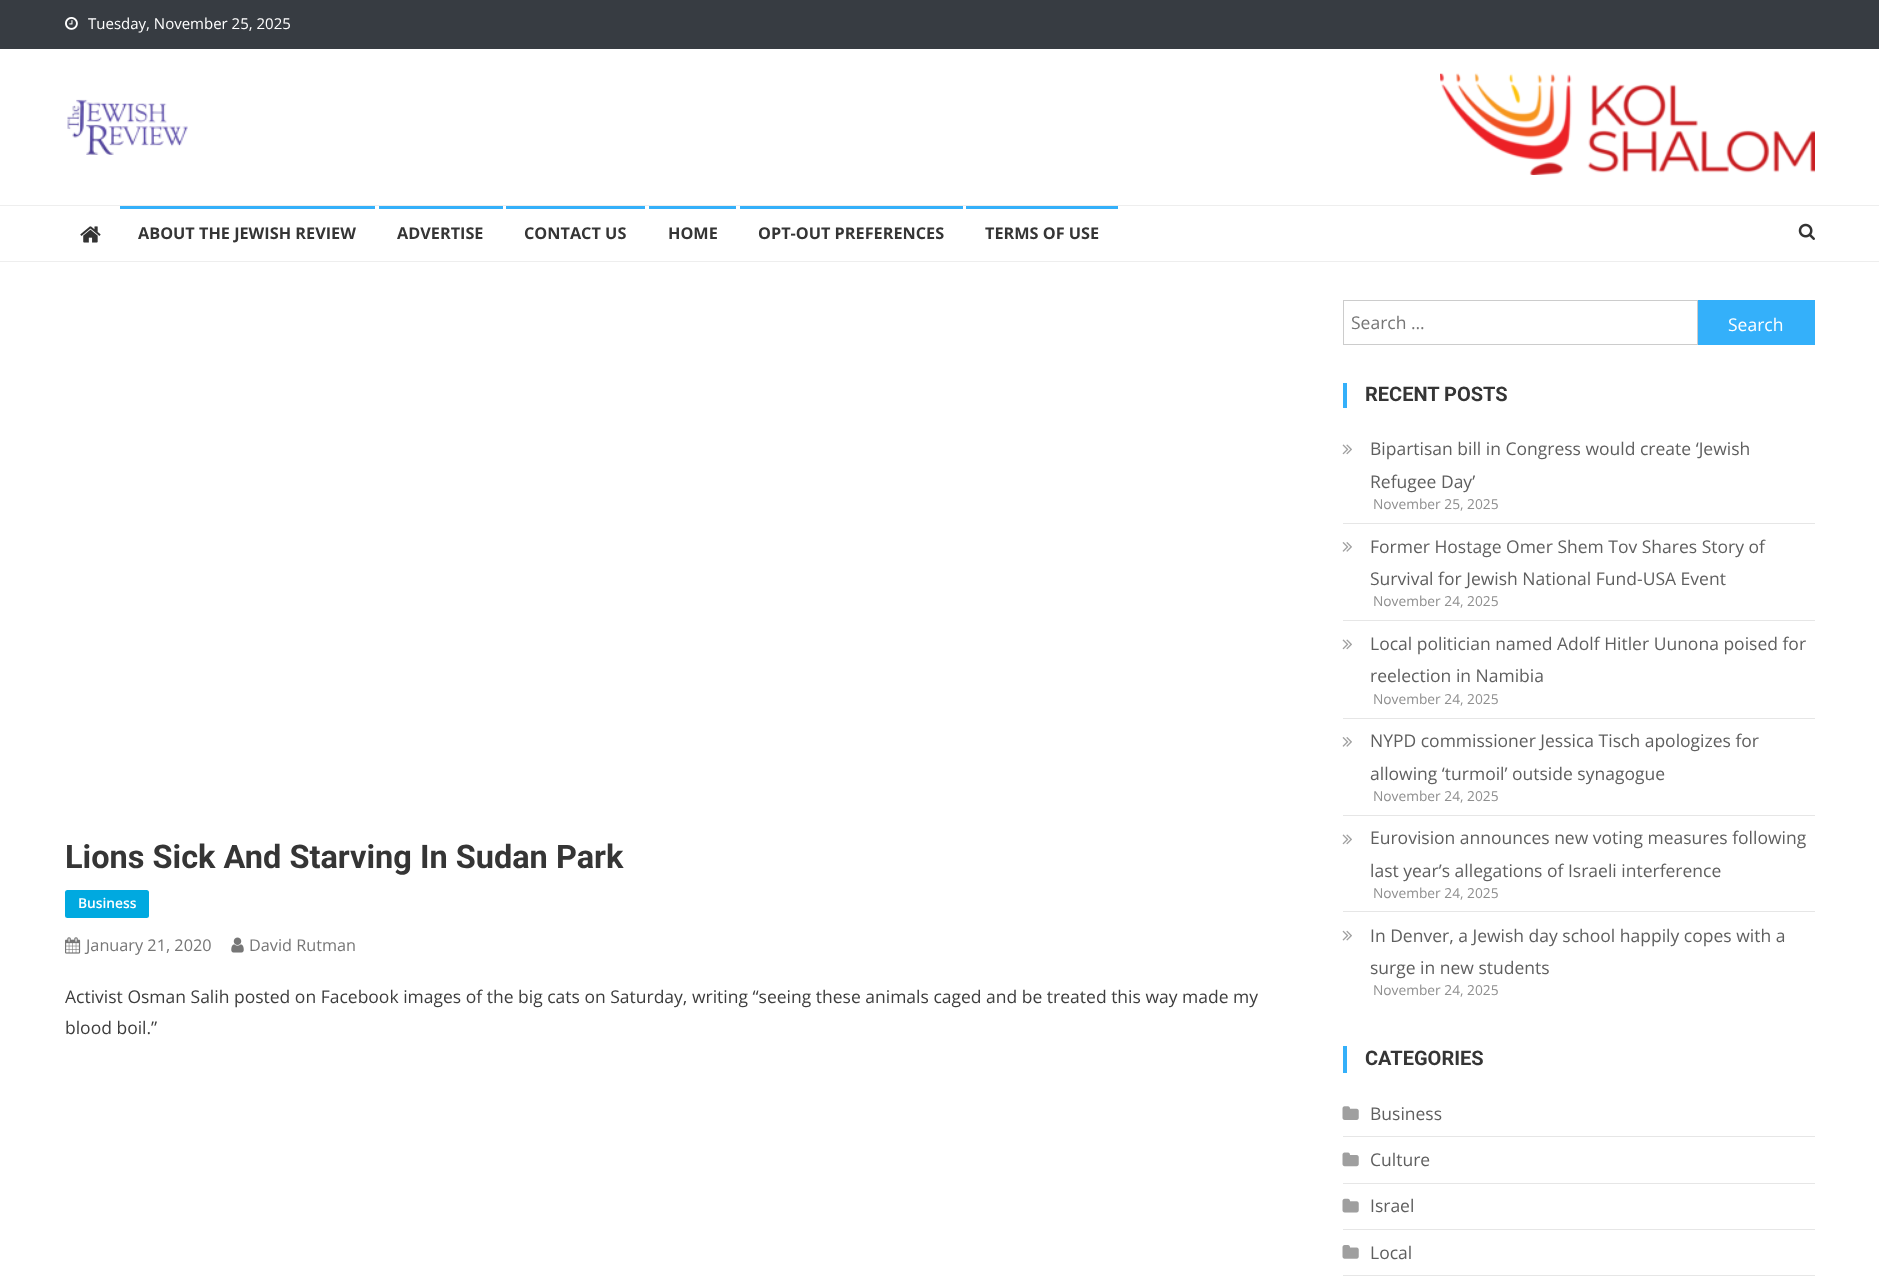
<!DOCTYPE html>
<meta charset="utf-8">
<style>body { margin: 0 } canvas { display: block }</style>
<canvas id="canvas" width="1879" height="1281"></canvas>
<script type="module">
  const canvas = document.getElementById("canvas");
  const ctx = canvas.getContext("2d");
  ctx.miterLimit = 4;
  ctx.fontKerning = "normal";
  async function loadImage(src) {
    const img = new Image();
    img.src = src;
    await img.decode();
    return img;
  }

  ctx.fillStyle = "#ffffff";
  ctx.fillRect(0, 0, 1879, 1281);
  ctx.fillStyle = "#373c42";
  ctx.fillRect(0, 0, 1879, 49);
  ctx.drawImage(await loadImage("img1.png"), 65, 17, 13, 13);
  ctx.font = "15px Open Sans";
  ctx.fillStyle = "#ffffff";
  ctx.fillText("Tuesday, November 25, 2025", 88, 29);
  ctx.drawImage(await loadImage("img2.png"), 67, 99, 121, 56);
  ctx.drawImage(await loadImage("img3.png"), 1440, 73, 375, 102);
  ctx.fillStyle = "#eeeeee";
  ctx.fillRect(0, 205, 1879, 1);
  ctx.fillRect(0, 261, 1879, 1);
  ctx.drawImage(await loadImage("img4.png"), 80, 226, 21, 17);
  ctx.fillStyle = "#34b0fa";
  ctx.fillRect(120, 206, 255, 3);
  ctx.font = "bold 16.25px Open Sans";
  ctx.fillStyle = "#353535";
  ctx.fillText("ABOUT THE JEWISH REVIEW", 138, 239);
  ctx.fillStyle = "#34b0fa";
  ctx.fillRect(379, 206, 124, 3);
  ctx.fillStyle = "#353535";
  ctx.fillText("ADVERTISE", 397, 239);
  ctx.fillStyle = "#34b0fa";
  ctx.fillRect(506, 206, 139, 3);
  ctx.fillStyle = "#353535";
  ctx.fillText("CONTACT US", 524, 239);
  ctx.fillStyle = "#34b0fa";
  ctx.fillRect(649, 206, 87, 3);
  ctx.fillStyle = "#353535";
  ctx.fillText("HOME", 668, 239);
  ctx.fillStyle = "#34b0fa";
  ctx.fillRect(740, 206, 223, 3);
  ctx.fillStyle = "#353535";
  ctx.fillText("OPT-OUT PREFERENCES", 758, 239);
  ctx.fillStyle = "#34b0fa";
  ctx.fillRect(966, 206, 152, 3);
  ctx.fillStyle = "#353535";
  ctx.fillText("TERMS OF USE", 985, 239);
  ctx.drawImage(await loadImage("img5.png"), 1798, 223, 17, 17);
  ctx.font = "bold 32.5px Roboto";
  ctx.fillText("Lions Sick And Starving In Sudan Park", 65, 868);
  ctx.fillStyle = "#00a9e0";
  ctx.beginPath();
  ctx.roundRect(65, 890, 84, 28, 2.5);
  ctx.fill();
  ctx.font = "600 13.75px Open Sans";
  ctx.fillStyle = "#ffffff";
  ctx.fillText("Business", 78, 908);
  ctx.drawImage(await loadImage("img6.png"), 65, 937, 16, 17);
  ctx.font = "16.25px Open Sans";
  ctx.fillStyle = "#767676";
  ctx.fillText("January 21, 2020", 86, 951);
  ctx.drawImage(await loadImage("img7.png"), 231, 937, 13, 16);
  ctx.fillText("David Rutman", 249, 951);
  ctx.font = "17.5px Open Sans";
  ctx.fillStyle = "#3d3d3d";
  ctx.fillText("Activist Osman Salih posted on Facebook images of the big cats on Saturday, writing “seeing these animals caged and be treated this way made my", 65, 1003);
  ctx.fillText("blood boil.”", 65, 1034);
  ctx.strokeStyle = "#cccccc";
  ctx.strokeRect(1343.5, 300.5, 354, 44);
  ctx.fillStyle = "#767676";
  ctx.fillText("Search …", 1351, 329);
  ctx.fillStyle = "#34b0fa";
  ctx.fillRect(1698, 300, 117, 45);
  ctx.fillStyle = "#ffffff";
  ctx.fillText("Search", 1728, 331);
  ctx.fillStyle = "#34b0fa";
  ctx.fillRect(1343, 383, 4, 25);
  ctx.font = "bold 20px Roboto";
  ctx.fillStyle = "#353535";
  ctx.fillText("RECENT POSTS", 1365, 401);
  ctx.fillStyle = "#e6e6e6";
  ctx.fillRect(1343, 523, 472, 1);
  ctx.drawImage(await loadImage("img8.png"), 1342, 444, 10, 11);
  ctx.font = "17.5px Open Sans";
  ctx.fillStyle = "#5f5f5f";
  ctx.fillText("Bipartisan bill in Congress would create ‘Jewish", 1370, 455);
  ctx.fillText("Refugee Day’", 1370, 488);
  ctx.font = "13.75px Open Sans";
  ctx.fillStyle = "#8f8f8f";
  ctx.fillText("November 25, 2025", 1373, 509);
  ctx.fillStyle = "#e6e6e6";
  ctx.fillRect(1343, 620, 472, 1);
  ctx.drawImage(await loadImage("img9.png"), 1342, 542, 10, 10);
  ctx.font = "17.5px Open Sans";
  ctx.fillStyle = "#5f5f5f";
  ctx.fillText("Former Hostage Omer Shem Tov Shares Story of", 1370, 553);
  ctx.fillText("Survival for Jewish National Fund-USA Event", 1370, 585);
  ctx.font = "13.75px Open Sans";
  ctx.fillStyle = "#8f8f8f";
  ctx.fillText("November 24, 2025", 1373, 606);
  ctx.fillStyle = "#e6e6e6";
  ctx.fillRect(1343, 718, 472, 1);
  ctx.drawImage(await loadImage("img8.png"), 1342, 639, 10, 11);
  ctx.font = "17.5px Open Sans";
  ctx.fillStyle = "#5f5f5f";
  ctx.fillText("Local politician named Adolf Hitler Uunona poised for", 1370, 650);
  ctx.fillText("reelection in Namibia", 1370, 682);
  ctx.font = "13.75px Open Sans";
  ctx.fillStyle = "#8f8f8f";
  ctx.fillText("November 24, 2025", 1373, 704);
  ctx.fillStyle = "#e6e6e6";
  ctx.fillRect(1343, 815, 472, 1);
  ctx.drawImage(await loadImage("img9.png"), 1342, 737, 10, 10);
  ctx.font = "17.5px Open Sans";
  ctx.fillStyle = "#5f5f5f";
  ctx.fillText("NYPD commissioner Jessica Tisch apologizes for", 1370, 747);
  ctx.fillText("allowing ‘turmoil’ outside synagogue", 1370, 780);
  ctx.font = "13.75px Open Sans";
  ctx.fillStyle = "#8f8f8f";
  ctx.fillText("November 24, 2025", 1373, 801);
  ctx.fillStyle = "#e6e6e6";
  ctx.fillRect(1343, 911, 472, 1);
  ctx.drawImage(await loadImage("img8.png"), 1342, 834, 10, 11);
  ctx.font = "17.5px Open Sans";
  ctx.fillStyle = "#5f5f5f";
  ctx.fillText("Eurovision announces new voting measures following", 1370, 844);
  ctx.fillText("last year’s allegations of Israeli interference", 1370, 877);
  ctx.font = "13.75px Open Sans";
  ctx.fillStyle = "#8f8f8f";
  ctx.fillText("November 24, 2025", 1373, 898);
  ctx.drawImage(await loadImage("img10.png"), 1342, 930, 10, 11);
  ctx.font = "17.5px Open Sans";
  ctx.fillStyle = "#5f5f5f";
  ctx.fillText("In Denver, a Jewish day school happily copes with a", 1370, 942);
  ctx.fillText("surge in new students", 1370, 974);
  ctx.font = "13.75px Open Sans";
  ctx.fillStyle = "#8f8f8f";
  ctx.fillText("November 24, 2025", 1373, 995);
  ctx.fillStyle = "#34b0fa";
  ctx.fillRect(1343, 1046, 4, 27);
  ctx.font = "bold 20px Roboto";
  ctx.fillStyle = "#353535";
  ctx.fillText("CATEGORIES", 1365, 1065);
  ctx.fillStyle = "#e6e6e6";
  ctx.fillRect(1343, 1136, 472, 1);
  ctx.drawImage(await loadImage("img11.png"), 1342, 1106, 17, 14);
  ctx.font = "17.5px Open Sans";
  ctx.fillStyle = "#5f5f5f";
  ctx.fillText("Business", 1370, 1120);
  ctx.fillStyle = "#e6e6e6";
  ctx.fillRect(1343, 1183, 472, 1);
  ctx.drawImage(await loadImage("img12.png"), 1342, 1152, 17, 15);
  ctx.fillStyle = "#5f5f5f";
  ctx.fillText("Culture", 1370, 1166);
  ctx.fillStyle = "#e6e6e6";
  ctx.fillRect(1343, 1229, 472, 1);
  ctx.drawImage(await loadImage("img13.png"), 1342, 1198, 17, 15);
  ctx.fillStyle = "#5f5f5f";
  ctx.fillText("Israel", 1370, 1212);
  ctx.fillStyle = "#e6e6e6";
  ctx.fillRect(1343, 1275, 472, 1);
  ctx.drawImage(await loadImage("img14.png"), 1342, 1245, 17, 14);
  ctx.fillStyle = "#5f5f5f";
  ctx.fillText("Local", 1370, 1259);
</script>
